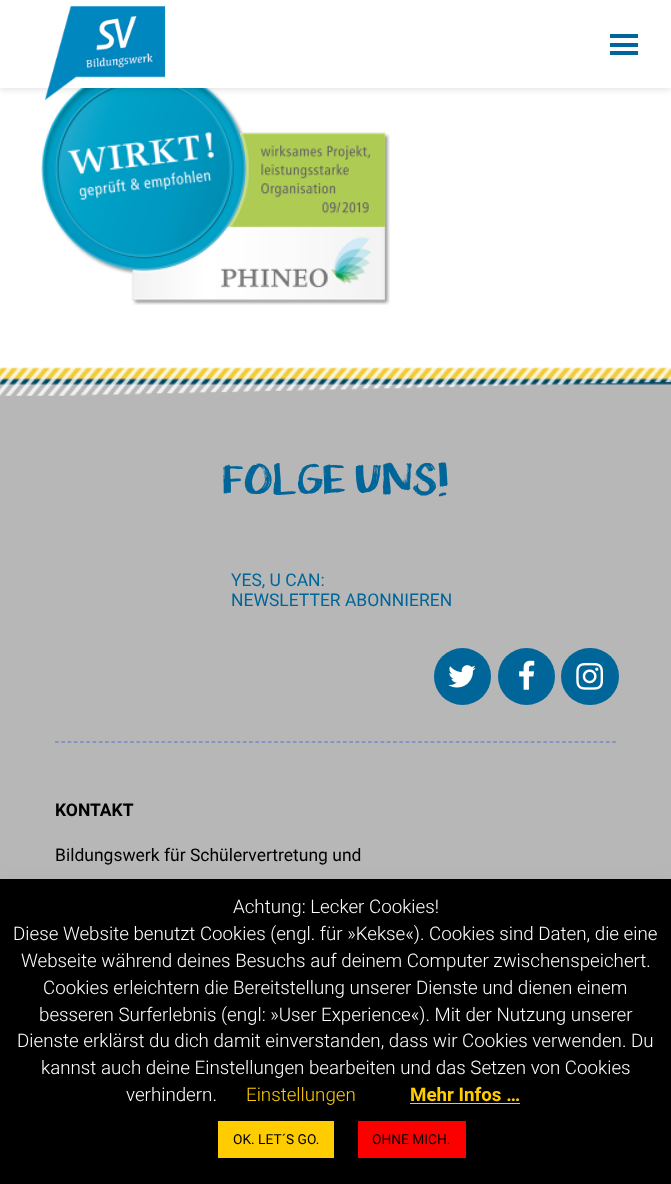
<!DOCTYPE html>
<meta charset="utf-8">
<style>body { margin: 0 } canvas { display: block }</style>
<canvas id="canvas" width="671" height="1184"></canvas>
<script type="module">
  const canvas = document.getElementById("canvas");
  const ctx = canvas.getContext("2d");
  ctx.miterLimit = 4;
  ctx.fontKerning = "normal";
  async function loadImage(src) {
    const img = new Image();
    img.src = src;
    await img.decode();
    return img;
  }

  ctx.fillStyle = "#ffffff";
  ctx.fillRect(0, 0, 671, 1184);
  ctx.drawImage(await loadImage("img2.png"), 41, 88, 349, 217);
  ctx.fillStyle = "rgba(0, 0, 0, 0.1)";
  ctx.filter = "blur(3px)";
  ctx.beginPath();
  ctx.rect(0, 3, 671, 87);
  ctx.fill();
  ctx.filter = "none";
  ctx.fillStyle = "#ffffff";
  ctx.fillRect(0, 0, 671, 88);
  ctx.drawImage(await loadImage("img1.png"), 45, 6, 121, 94);
  ctx.fillStyle = "#006699";
  ctx.fillRect(610, 43, 28, 4);
  ctx.fillRect(610, 34, 28, 4);
  ctx.fillRect(610, 51, 28, 4);
  ctx.fillStyle = "#b7b7b7";
  ctx.fillRect(0, 378, 671, 501);
  ctx.drawImage(await loadImage("img3.png"), 0, 366, 671, 30);
  ctx.font = "37.5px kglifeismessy";
  ctx.fillStyle = "#006699";
  ctx.fillText("FOLGE UNS!", 222, 498);
  ctx.font = "17.5px Roboto";
  ctx.fillText("YES, U CAN:", 231, 586);
  ctx.fillText("NEWSLETTER ABONNIEREN", 231, 606);
  ctx.beginPath();
  ctx.arc(462.5, 676.5, 28.5, 0, Math.PI * 2);
  ctx.fill();
  ctx.drawImage(await loadImage("img4.png"), 448, 665, 28, 23);
  ctx.beginPath();
  ctx.arc(526.5, 676.5, 28.5, 0, Math.PI * 2);
  ctx.fill();
  ctx.drawImage(await loadImage("img5.png"), 519, 660, 16, 30);
  ctx.beginPath();
  ctx.roundRect(561, 648, 58, 57, 28.5);
  ctx.fill();
  ctx.drawImage(await loadImage("img6.png"), 576, 662, 28, 28);
  ctx.beginPath();
  ctx.moveTo(55, 742);
  ctx.lineTo(616, 742);
  ctx.strokeStyle = "#5472d2";
  ctx.lineWidth = 1.2;
  ctx.setLineDash([3.75, 2.51]);
  ctx.stroke();
  ctx.font = "bold 17.5px Roboto";
  ctx.fillStyle = "#000000";
  ctx.fillText("KONTAKT", 55, 816);
  ctx.font = "17.5px Roboto";
  ctx.fillText("Bildungswerk für Schülervertretung und", 55, 861);
  ctx.fillStyle = "rgba(172, 171, 171, 0.3)";
  ctx.filter = "blur(6px)";
  ctx.beginPath();
  ctx.rect(0, 878, 671, 306);
  ctx.fill();
  ctx.filter = "none";
  ctx.fillStyle = "#000000";
  ctx.fillRect(0, 879, 671, 305);
  ctx.font = "300 18.75px Roboto";
  ctx.fillStyle = "#ffffff";
  ctx.fillText("Achtung: Lecker Cookies!", 233, 913);
  ctx.fillText("Diese Website benutzt Cookies (engl. für »Kekse«). Cookies sind Daten, die eine", 13, 940);
  ctx.fillText("Webseite während deines Besuchs auf deinem Computer zwischenspeichert.", 21, 967);
  ctx.fillText("Cookies erleichtern die Bereitstellung unserer Dienste und dienen einem", 43, 994);
  ctx.fillText("besseren Surferlebnis (engl: »User Experience«). Mit der Nutzung unserer", 39, 1021);
  ctx.fillText("Dienste erklärst du dich damit einverstanden, dass wir Cookies verwenden. Du", 17, 1047);
  ctx.fillText("kannst auch deine Einstellungen bearbeiten und das Setzen von Cookies", 41, 1074);
  ctx.fillText("verhindern.", 126, 1101);
  ctx.fillStyle = "#ffcc00";
  ctx.fillText("Einstellungen", 246, 1101);
  ctx.font = "bold 18.75px Roboto";
  ctx.fillText("Mehr Infos …", 410, 1101);
  ctx.fillRect(410, 1103, 110, 1);
  ctx.fillRect(218, 1121, 116, 37);
  ctx.font = "13.75px Roboto";
  ctx.fillStyle = "#000000";
  ctx.fillText("OK. LET´S GO.", 233, 1144);
  ctx.fillStyle = "#fc0000";
  ctx.fillRect(358, 1121, 108, 37);
  ctx.fillStyle = "#000000";
  ctx.fillText("OHNE MICH.", 372, 1144);
</script>
